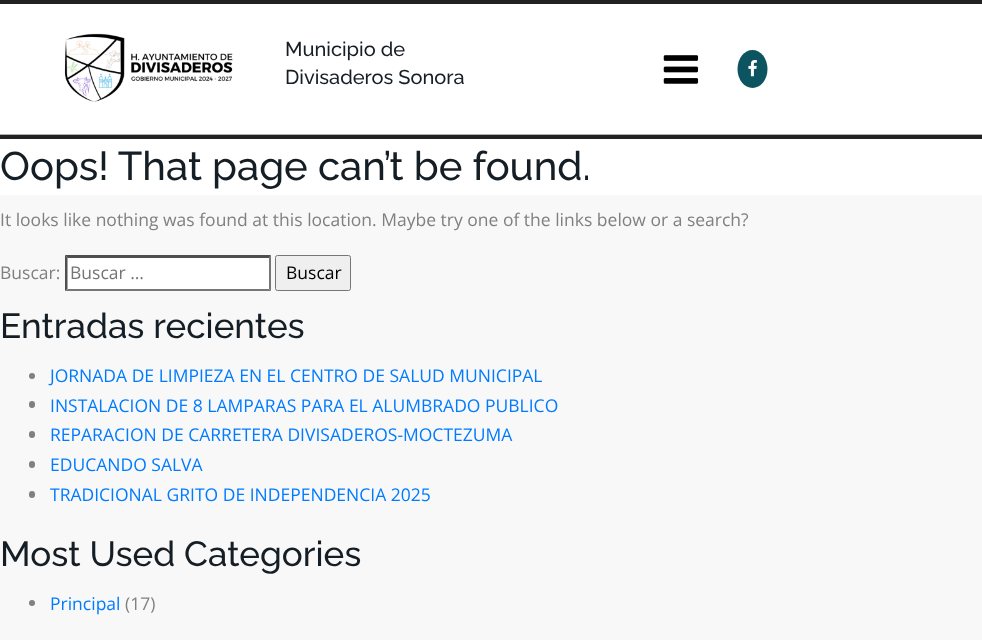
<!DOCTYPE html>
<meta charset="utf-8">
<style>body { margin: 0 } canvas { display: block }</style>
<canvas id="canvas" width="982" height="640"></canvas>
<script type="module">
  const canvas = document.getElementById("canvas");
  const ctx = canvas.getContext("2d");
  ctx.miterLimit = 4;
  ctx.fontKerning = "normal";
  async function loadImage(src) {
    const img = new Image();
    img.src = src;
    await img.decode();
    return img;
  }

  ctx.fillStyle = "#f8f8f8";
  ctx.fillRect(0, 0, 982, 640);
  ctx.fillStyle = "#ffffff";
  ctx.fillRect(0, 4, 982, 130);
  ctx.fillStyle = "#222222";
  ctx.fillRect(0, 0, 982, 4);
  ctx.fillStyle = "#b0b0b0";
  ctx.fillRect(0, 134, 982, 1);
  ctx.drawImage(await loadImage("img1.png"), 64, 33, 169, 69);
  ctx.font = "500 20px Raleway";
  ctx.fillStyle = "#151e25";
  ctx.fillText("Municipio de", 285, 56);
  ctx.fillText("Divisaderos Sonora", 285, 84);
  ctx.drawImage(await loadImage("img2.png"), 663, 55, 36, 29);
  ctx.fillStyle = "#0c5460";
  ctx.beginPath();
  ctx.ellipse(752.5, 69, 15, 19, 0, 0, Math.PI * 2);
  ctx.fill();
  ctx.drawImage(await loadImage("img3.png"), 748, 60, 9, 17);
  ctx.fillStyle = "#ffffff";
  ctx.fillRect(0, 139, 982, 56);
  ctx.fillStyle = "#222222";
  ctx.fillRect(0, 135, 982, 4);
  ctx.font = "500 40px Raleway";
  ctx.fillStyle = "#151e25";
  ctx.fillText("Oops! That page can’t be found.", 0, 180);
  ctx.font = "17.5px Open Sans";
  ctx.fillStyle = "#808080";
  ctx.fillText("It looks like nothing was found at this location. Maybe try one of the links below or a search?", 0, 226);
  ctx.fillText("Buscar:", 0, 279);
  ctx.fillStyle = "#ffffff";
  ctx.fillRect(65, 255, 206, 36);
  ctx.fillStyle = "#4f4f4f";
  ctx.beginPath();
  ctx.moveTo(65, 255);
  ctx.lineTo(271, 255);
  ctx.lineTo(269, 258);
  ctx.lineTo(68, 258);
  ctx.closePath();
  ctx.fill();
  ctx.fillStyle = "#767676";
  ctx.beginPath();
  ctx.moveTo(271, 255);
  ctx.lineTo(271, 291);
  ctx.lineTo(269, 289);
  ctx.lineTo(269, 257.5);
  ctx.closePath();
  ctx.fill();
  ctx.beginPath();
  ctx.moveTo(271, 291);
  ctx.lineTo(65, 291);
  ctx.lineTo(68, 289);
  ctx.lineTo(269, 289);
  ctx.closePath();
  ctx.fill();
  ctx.fillStyle = "#4f4f4f";
  ctx.beginPath();
  ctx.moveTo(65, 291);
  ctx.lineTo(65, 255);
  ctx.lineTo(67.5, 257.5);
  ctx.lineTo(67.5, 289);
  ctx.closePath();
  ctx.fill();
  ctx.fillStyle = "#757575";
  ctx.fillText("Buscar …", 70, 279);
  ctx.fillStyle = "#efefef";
  ctx.beginPath();
  ctx.roundRect(275.5, 255.5, 75, 35, 2);
  ctx.fill();
  ctx.strokeStyle = "#767676";
  ctx.stroke();
  ctx.fillStyle = "#000000";
  ctx.fillText("Buscar", 286, 279);
  ctx.font = "500 35px Raleway";
  ctx.fillStyle = "#151e25";
  ctx.fillText("Entradas recientes", 0, 338);
  ctx.fillStyle = "#808080";
  ctx.beginPath();
  ctx.arc(32, 376, 3, 0, Math.PI * 2);
  ctx.fill();
  ctx.font = "17.5px Open Sans";
  ctx.fillStyle = "#007bff";
  ctx.fillText("JORNADA DE LIMPIEZA EN EL CENTRO DE SALUD MUNICIPAL", 50, 382);
  ctx.fillStyle = "#808080";
  ctx.beginPath();
  ctx.roundRect(29, 401, 6, 7, 3);
  ctx.fill();
  ctx.fillStyle = "#007bff";
  ctx.fillText("INSTALACION DE 8 LAMPARAS PARA EL ALUMBRADO PUBLICO", 50, 412);
  ctx.fillStyle = "#808080";
  ctx.beginPath();
  ctx.roundRect(29, 431, 6, 7, 3);
  ctx.fill();
  ctx.fillStyle = "#007bff";
  ctx.fillText("REPARACION DE CARRETERA DIVISADEROS-MOCTEZUMA", 50, 441);
  ctx.fillStyle = "#808080";
  ctx.beginPath();
  ctx.roundRect(29, 461, 6, 7, 3);
  ctx.fill();
  ctx.fillStyle = "#007bff";
  ctx.fillText("EDUCANDO SALVA", 50, 471);
  ctx.fillStyle = "#808080";
  ctx.beginPath();
  ctx.roundRect(29, 491, 6, 7, 3);
  ctx.fill();
  ctx.fillStyle = "#007bff";
  ctx.fillText("TRADICIONAL GRITO DE INDEPENDENCIA 2025", 50, 501);
  ctx.font = "500 35px Raleway";
  ctx.fillStyle = "#151e25";
  ctx.fillText("Most Used Categories", 0, 566);
  ctx.fillStyle = "#808080";
  ctx.beginPath();
  ctx.arc(32, 603, 3, 0, Math.PI * 2);
  ctx.fill();
  ctx.font = "17.5px Open Sans";
  ctx.fillStyle = "#007bff";
  ctx.fillText("Principal", 50, 610);
  ctx.fillStyle = "#808080";
  ctx.fillText("(17)", 125, 610);
</script>
